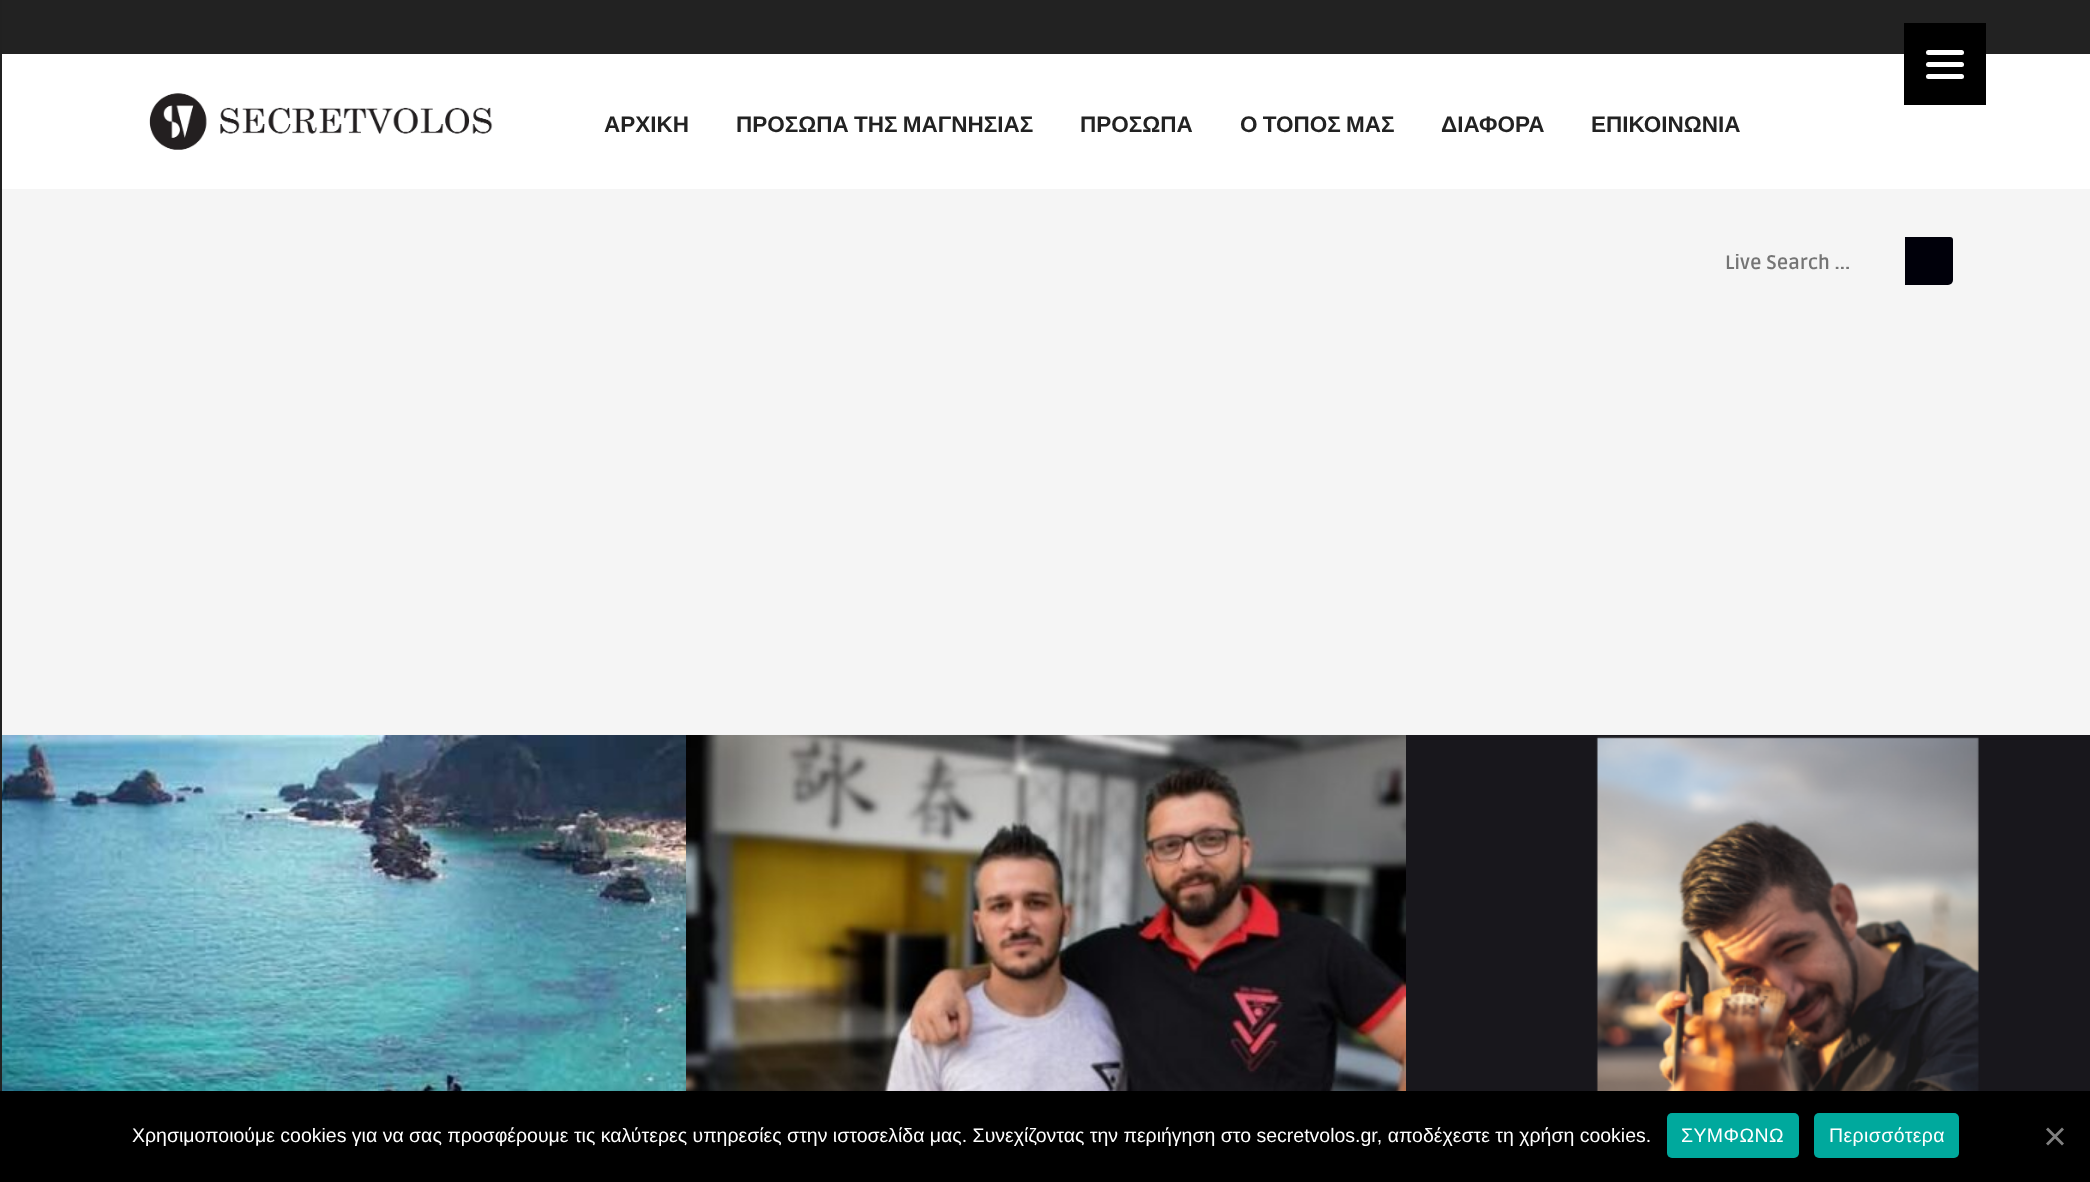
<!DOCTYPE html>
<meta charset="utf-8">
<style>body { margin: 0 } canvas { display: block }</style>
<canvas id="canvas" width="2090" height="1182"></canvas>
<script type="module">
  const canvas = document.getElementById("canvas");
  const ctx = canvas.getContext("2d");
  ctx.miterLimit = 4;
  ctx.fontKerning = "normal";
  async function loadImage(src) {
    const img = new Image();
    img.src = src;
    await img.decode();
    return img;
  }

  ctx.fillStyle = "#f5f5f5";
  ctx.fillRect(0, 0, 2090, 1182);
  ctx.fillStyle = "#212121";
  ctx.fillRect(0, 0, 2, 1091);
  ctx.fillStyle = "#ffffff";
  ctx.fillRect(2, 54, 2088, 135);
  ctx.fillStyle = "#222222";
  ctx.fillRect(2, 0, 2088, 54);
  ctx.fillStyle = "#000000";
  ctx.fillRect(1904, 23, 82, 82);
  ctx.fillStyle = "#ffffff";
  ctx.beginPath();
  ctx.roundRect(1926, 62, 38, 5, 2.5);
  ctx.fill();
  ctx.beginPath();
  ctx.roundRect(1926, 50, 38, 5, 2.5);
  ctx.fill();
  ctx.beginPath();
  ctx.roundRect(1926, 74, 38, 5, 2.5);
  ctx.fill();
  ctx.drawImage(await loadImage("img1.png"), 149, 93, 344, 57);
  ctx.font = "bold 22.5px Liberation Sans";
  ctx.fillStyle = "#222222";
  ctx.fillText("ΑΡΧΙΚΗ", 604, 132);
  ctx.wordSpacing = "-1px";
  ctx.fillText("ΠΡΟΣΩΠΑ ΤΗΣ ΜΑΓΝΗΣΙΑΣ", 736, 132);
  ctx.wordSpacing = "0px";
  ctx.fillText("ΠΡΟΣΩΠΑ", 1080, 132);
  ctx.wordSpacing = "-1px";
  ctx.fillText("Ο ΤΟΠΟΣ ΜΑΣ", 1240, 132);
  ctx.wordSpacing = "0px";
  ctx.fillText("ΔΙΑΦΟΡΑ", 1441, 132);
  ctx.fillText("ΕΠΙΚΟΙΝΩΝΙΑ", 1591, 132);
  ctx.font = "bold 19.5px Ruda";
  ctx.fillStyle = "#757575";
  ctx.fillText("Live Search ...", 1725, 269);
  ctx.fillStyle = "#00000a";
  ctx.beginPath();
  ctx.roundRect(1905, 237, 48, 48, [0, 3, 5, 0]);
  ctx.fill();
  ctx.drawImage(await loadImage("img2.png"), 2, 735, 684, 356);
  ctx.drawImage(await loadImage("img3.png"), 686, 735, 720, 356);
  ctx.drawImage(await loadImage("img4.png"), 1406, 735, 684, 356);
  ctx.fillStyle = "#000000";
  ctx.fillRect(0, 1091, 2090, 91);
  ctx.font = "19.5px Liberation Sans";
  ctx.fillStyle = "#ffffff";
  ctx.fillText("Χρησιμοποιούμε cookies για να σας προσφέρουμε τις καλύτερες υπηρεσίες στην ιστοσελίδα μας. Συνεχίζοντας την περιήγηση στο secretvolos.gr, αποδέχεστε τη χρήση cookies.", 132, 1142);
  ctx.fillStyle = "#00a99d";
  ctx.beginPath();
  ctx.roundRect(1667, 1113, 132, 45, 5);
  ctx.fill();
  ctx.letterSpacing = "0.4px";
  ctx.fillStyle = "#ffffff";
  ctx.fillText("ΣΥΜΦΩΝΩ", 1681, 1142);
  ctx.fillStyle = "#00a99d";
  ctx.beginPath();
  ctx.roundRect(1814, 1113, 145, 45, 5);
  ctx.fill();
  ctx.fillStyle = "#ffffff";
  ctx.fillText("Περισσότερα", 1829, 1142);
  ctx.fillStyle = "#808080";
  ctx.beginPath();
  ctx.moveTo(2062, 1127.5);
  ctx.lineTo(2064, 1129.5);
  ctx.lineTo(2048, 1145.5);
  ctx.lineTo(2046, 1143.5);
  ctx.closePath();
  ctx.fill();
  ctx.beginPath();
  ctx.moveTo(2046, 1129.5);
  ctx.lineTo(2048, 1127.5);
  ctx.lineTo(2064, 1143.5);
  ctx.lineTo(2062, 1145.5);
  ctx.closePath();
  ctx.fill();
</script>
